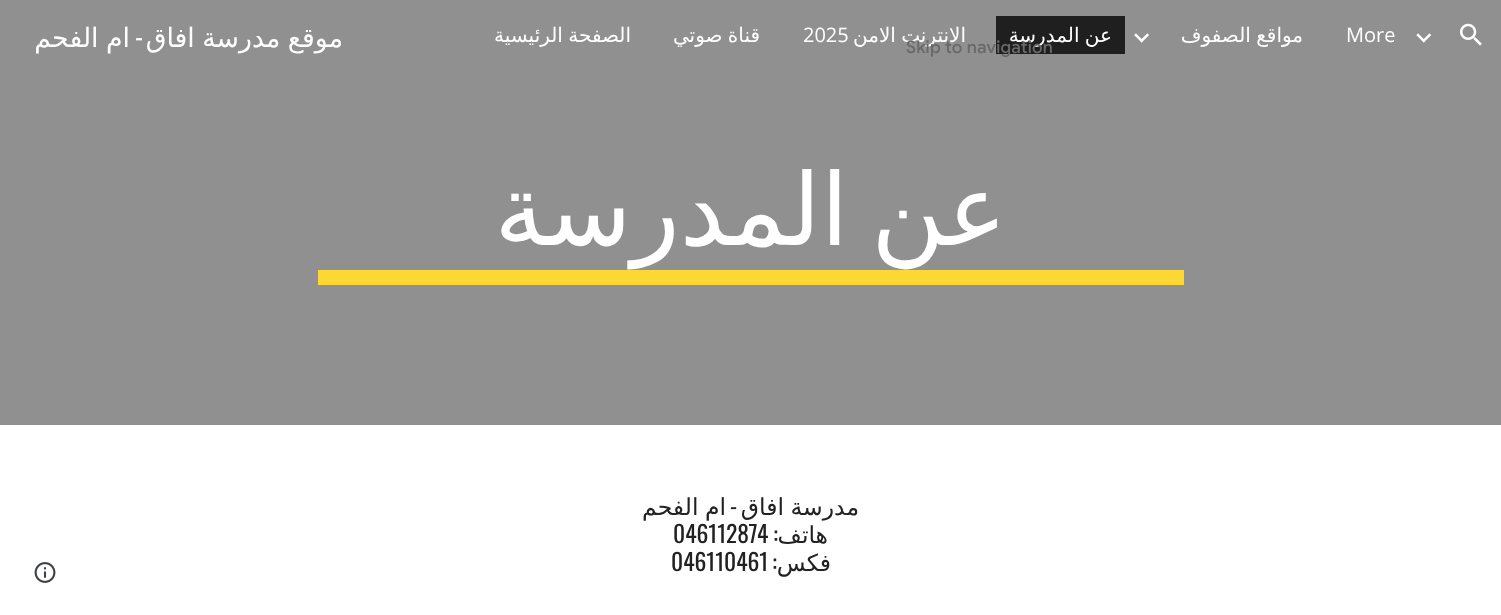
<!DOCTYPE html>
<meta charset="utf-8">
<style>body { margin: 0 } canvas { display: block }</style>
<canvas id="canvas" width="1501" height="615"></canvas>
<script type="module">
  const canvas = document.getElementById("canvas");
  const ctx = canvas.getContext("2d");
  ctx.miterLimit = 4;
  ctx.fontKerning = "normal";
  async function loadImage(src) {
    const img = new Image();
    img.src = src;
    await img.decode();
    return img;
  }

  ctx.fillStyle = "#ffffff";
  ctx.fillRect(0, 0, 1501, 615);
  ctx.fillStyle = "#909090";
  ctx.fillRect(0, 0, 1501, 425);
  ctx.drawImage(await loadImage("img1.png"), 1460, 23, 22, 23);
  ctx.drawImage(await loadImage("img2.png"), 1416, 33, 16, 10);
  ctx.font = "20px Open Sans";
  ctx.fillStyle = "#ffffff";
  ctx.fillText("More", 1346, 42);
  ctx.wordSpacing = "-1px";
  ctx.direction = "rtl";
  ctx.font = "20px DejaVu Sans";
  ctx.fillText("مواقع الصفوف", 1303, 42);
  ctx.drawImage(await loadImage("img3.png"), 1134, 33, 15, 10);
  ctx.fillStyle = "#1f1f1f";
  ctx.fillRect(996, 16, 129, 38);
  ctx.fillStyle = "#ffffff";
  ctx.fillText("عن المدرسة", 1112, 42);
  ctx.fillText("الانترنت الامن", 966, 42);
  ctx.wordSpacing = "0px";
  ctx.direction = "ltr";
  ctx.font = "20px Open Sans";
  ctx.fillText("2025", 803, 42);
  ctx.wordSpacing = "-1px";
  ctx.direction = "rtl";
  ctx.font = "20px DejaVu Sans";
  ctx.fillText("قناة صوتي", 760, 42);
  ctx.fillText("الصفحة الرئيسية", 631, 42);
  ctx.font = "26.75px DejaVu Sans";
  ctx.fillText("موقع مدرسة افاق", 343, 47);
  ctx.wordSpacing = "0px";
  ctx.font = "26.75px Oswald";
  ctx.fillText("-", 143, 47);
  ctx.wordSpacing = "-1px";
  ctx.font = "26.75px DejaVu Sans";
  ctx.fillText("ام الفحم", 130, 47);
  ctx.wordSpacing = "-9px";
  ctx.font = "100px DejaVu Sans";
  ctx.fillText("عن المدرسة", 1007, 245);
  ctx.fillStyle = "#fdd835";
  ctx.fillRect(318, 270, 866, 15);
  ctx.wordSpacing = "-1px";
  ctx.font = "23.5px DejaVu Sans";
  ctx.fillStyle = "#212121";
  ctx.fillText("مدرسة افاق", 859, 515);
  ctx.wordSpacing = "0px";
  ctx.font = "23.5px Oswald";
  ctx.fillText("-", 737, 515);
  ctx.wordSpacing = "-1px";
  ctx.font = "23.5px DejaVu Sans";
  ctx.fillText("ام الفحم", 726, 515);
  ctx.wordSpacing = "0px";
  ctx.fillText("هاتف", 828, 543);
  ctx.font = "23.5px Oswald";
  ctx.fillText(":", 778, 543);
  ctx.direction = "ltr";
  ctx.fillText("046112874", 673, 543);
  ctx.direction = "rtl";
  ctx.font = "23.5px DejaVu Sans";
  ctx.fillText("فكس", 831, 571);
  ctx.font = "23.5px Oswald";
  ctx.fillText(":", 777, 571);
  ctx.direction = "ltr";
  ctx.fillText("046110461", 671, 571);
  ctx.drawImage(await loadImage("img4.png"), 34, 562, 22, 21);
  ctx.letterSpacing = "0.2px";
  ctx.font = "500 17.5px Google Sans";
  ctx.fillStyle = "#696969";
  ctx.fillText("Skip to navigation", 906, 53);
</script>
